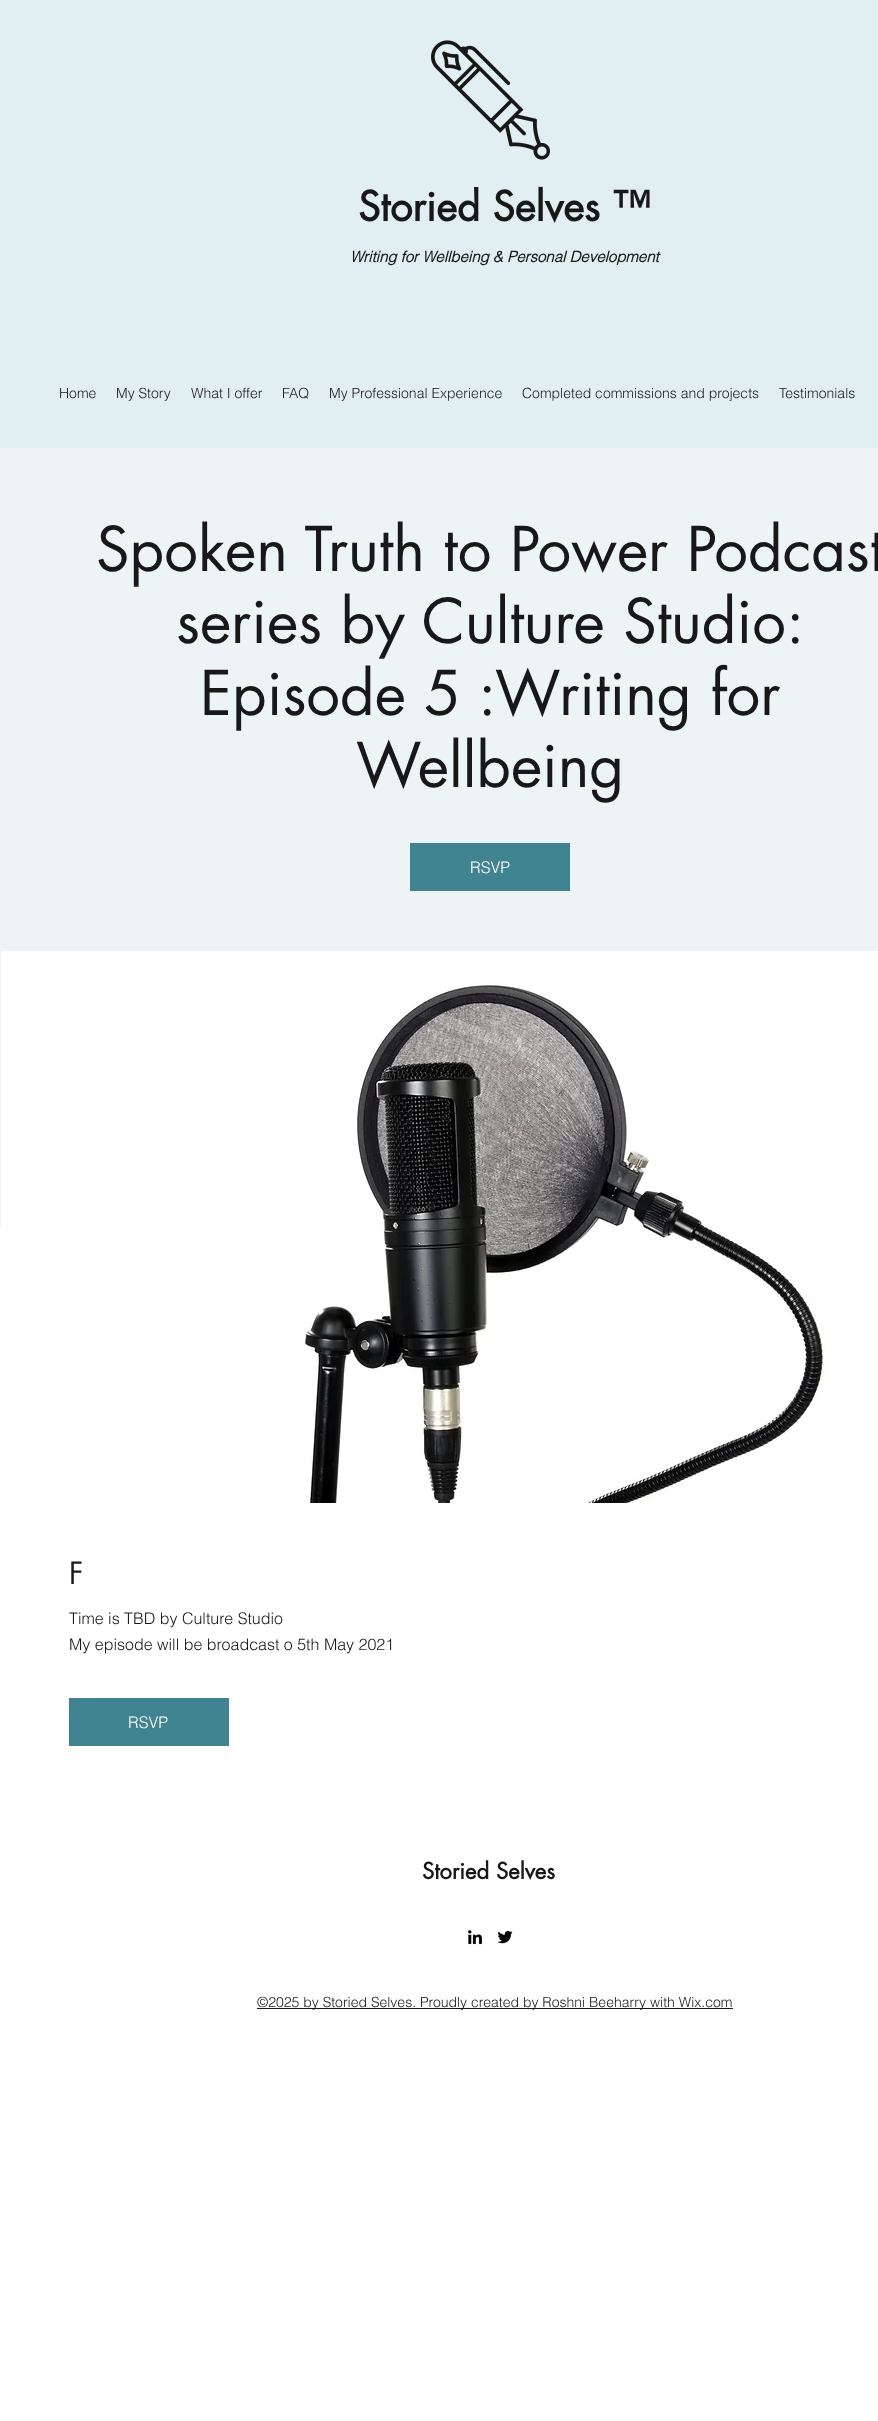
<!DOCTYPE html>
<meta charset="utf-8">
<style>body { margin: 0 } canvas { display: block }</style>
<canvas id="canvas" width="878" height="2421"></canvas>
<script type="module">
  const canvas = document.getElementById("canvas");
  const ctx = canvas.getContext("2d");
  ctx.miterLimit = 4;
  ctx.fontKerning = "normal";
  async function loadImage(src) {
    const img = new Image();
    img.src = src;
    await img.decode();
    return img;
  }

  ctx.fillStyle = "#ffffff";
  ctx.fillRect(0, 0, 878, 2421);
  ctx.fillStyle = "#e1eff2";
  ctx.fillRect(0, 0, 878, 448);
  ctx.drawImage(await loadImage("img1.png"), 431, 40, 119, 120);
  ctx.font = "bold 40px futura";
  ctx.fillStyle = "#181818";
  ctx.fillText("Storied Selves ™", 358, 221);
  ctx.font = "italic bold 15px helvetica";
  ctx.fillText("Writing for Wellbeing & Personal Development", 350, 262);
  ctx.font = "300 14px helvetica";
  ctx.fillText("Home", 59, 398);
  ctx.fillText("My Story", 116, 398);
  ctx.fillText("What I offer", 191, 398);
  ctx.fillText("FAQ", 282, 398);
  ctx.fillText("My Professional Experience", 329, 398);
  ctx.fillText("Completed commissions and projects", 522, 398);
  ctx.fillText("Testimonials", 779, 398);
  ctx.fillStyle = "#edf4f5";
  ctx.fillRect(0, 448, 878, 779);
  ctx.font = "60px futura";
  ctx.fillStyle = "#181818";
  ctx.fillText("Spoken Truth to Power Podcast", 96, 571);
  ctx.fillText("series by Culture Studio:", 176, 643);
  ctx.fillText("Episode 5 :Writing for", 200, 715);
  ctx.fillText("Wellbeing", 356, 787);
  ctx.fillStyle = "#408492";
  ctx.fillRect(410, 843, 160, 48);
  ctx.font = "300 16px helvetica";
  ctx.fillStyle = "#ffffff";
  ctx.fillText("RSVP", 470, 873);
  ctx.drawImage(await loadImage("img2.png"), 1, 951, 877, 552);
  ctx.font = "30px futura";
  ctx.fillStyle = "#181818";
  ctx.fillText("F", 69, 1584);
  ctx.font = "300 16px helvetica";
  ctx.fillText("Time is TBD by Culture Studio", 69, 1624);
  ctx.fillText("My episode will be broadcast o 5th May 2021", 69, 1650);
  ctx.fillStyle = "#408492";
  ctx.fillRect(69, 1698, 160, 48);
  ctx.fillStyle = "#ffffff";
  ctx.fillText("RSVP", 128, 1728);
  ctx.font = "bold 22px futura";
  ctx.fillStyle = "#181818";
  ctx.fillText("Storied Selves", 422, 1879);
  ctx.drawImage(await loadImage("img3.png"), 468, 1930, 15, 15);
  ctx.drawImage(await loadImage("img4.png"), 497, 1930, 16, 14);
  ctx.fillRect(257, 2008, 476, 1);
  ctx.font = "300 14px helvetica";
  ctx.fillText("©2025 by Storied Selves. Proudly created by Roshni Beeharry with Wix.com", 257, 2007);
</script>
